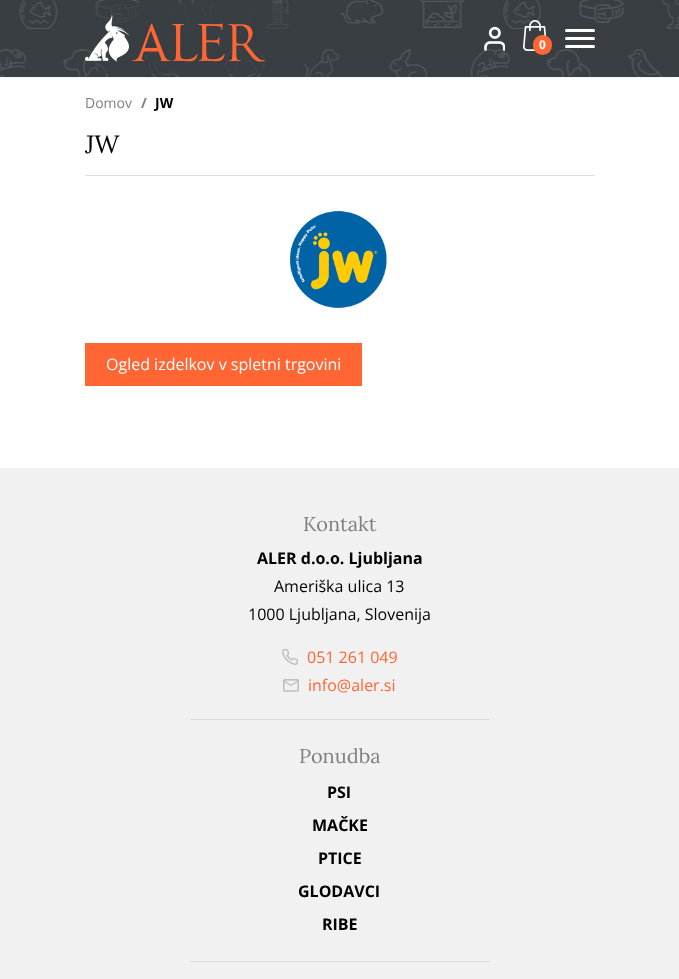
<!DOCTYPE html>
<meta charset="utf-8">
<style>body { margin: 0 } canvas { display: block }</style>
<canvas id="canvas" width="679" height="979"></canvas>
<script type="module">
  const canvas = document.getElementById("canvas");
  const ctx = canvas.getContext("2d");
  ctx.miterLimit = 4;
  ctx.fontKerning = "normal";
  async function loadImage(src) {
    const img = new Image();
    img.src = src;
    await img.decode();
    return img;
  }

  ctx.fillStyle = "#ffffff";
  ctx.fillRect(0, 0, 679, 979);
  ctx.fillStyle = "#e4e1e1";
  ctx.filter = "blur(1px)";
  ctx.beginPath();
  ctx.rect(2, 4, 675, 73);
  ctx.fill();
  ctx.filter = "none";
  ctx.drawImage(await loadImage("img1.png"), 0, 0, 679, 77);
  ctx.drawImage(await loadImage("img2.png"), 85, 15, 180, 47);
  ctx.drawImage(await loadImage("img3.png"), 484, 26, 21, 25);
  ctx.drawImage(await loadImage("img4.png"), 523, 20, 24, 31);
  ctx.fillStyle = "#ff6633";
  ctx.beginPath();
  ctx.roundRect(533, 35, 19, 20, 9.5);
  ctx.fill();
  ctx.font = "bold 12px Open Sans";
  ctx.fillStyle = "#ffffff";
  ctx.fillText("0", 539, 49);
  ctx.beginPath();
  ctx.roundRect(565, 29, 30, 3, 1.5);
  ctx.fill();
  ctx.beginPath();
  ctx.roundRect(565, 37, 30, 3, 1.5);
  ctx.fill();
  ctx.beginPath();
  ctx.roundRect(565, 45, 30, 3, 1.5);
  ctx.fill();
  ctx.font = "14px Open Sans";
  ctx.fillStyle = "#808080";
  ctx.fillText("Domov", 85, 108);
  ctx.font = "bold 14px Open Sans";
  ctx.fillText("/", 141, 108);
  ctx.fillStyle = "#000000";
  ctx.fillText("JW", 155, 108);
  ctx.fillStyle = "#dedede";
  ctx.fillRect(85, 175, 510, 1);
  ctx.font = "25px Lora";
  ctx.fillStyle = "#000000";
  ctx.fillText("JW", 85, 153);
  ctx.drawImage(await loadImage("img5.png"), 290, 211, 97, 97);
  ctx.fillStyle = "#ff6633";
  ctx.fillRect(85, 343, 277, 43);
  ctx.font = "16px Open Sans";
  ctx.fillStyle = "#ffffff";
  ctx.fillText("Ogled izdelkov v spletni trgovini", 106, 370);
  ctx.fillStyle = "#f1f1f1";
  ctx.fillRect(0, 468, 679, 511);
  ctx.font = "20px Lora";
  ctx.fillStyle = "#808080";
  ctx.fillText("Kontakt", 303, 531);
  ctx.font = "bold 16px Open Sans";
  ctx.fillStyle = "#000000";
  ctx.fillText("ALER d.o.o. Ljubljana", 257, 564);
  ctx.font = "16px Open Sans";
  ctx.fillText("Ameriška ulica 13", 274, 592);
  ctx.fillText("1000 Ljubljana, Slovenija", 248, 620);
  ctx.drawImage(await loadImage("img6.png"), 282, 649, 16, 16);
  ctx.fillStyle = "#ff6633";
  ctx.fillText("051 261 049", 307, 663);
  ctx.drawImage(await loadImage("img7.png"), 283, 679, 16, 13);
  ctx.fillText("info@aler.si", 308, 691);
  ctx.fillStyle = "#dedede";
  ctx.fillRect(190, 719, 300, 1);
  ctx.font = "20px Lora";
  ctx.fillStyle = "#808080";
  ctx.fillText("Ponudba", 299, 763);
  ctx.font = "bold 16px Open Sans";
  ctx.fillStyle = "#000000";
  ctx.fillText("PSI", 327, 798);
  ctx.fillText("MAČKE", 312, 831);
  ctx.fillText("PTICE", 318, 864);
  ctx.fillText("GLODAVCI", 298, 897);
  ctx.fillText("RIBE", 322, 930);
  ctx.fillStyle = "#dedede";
  ctx.fillRect(190, 961, 300, 1);
</script>
